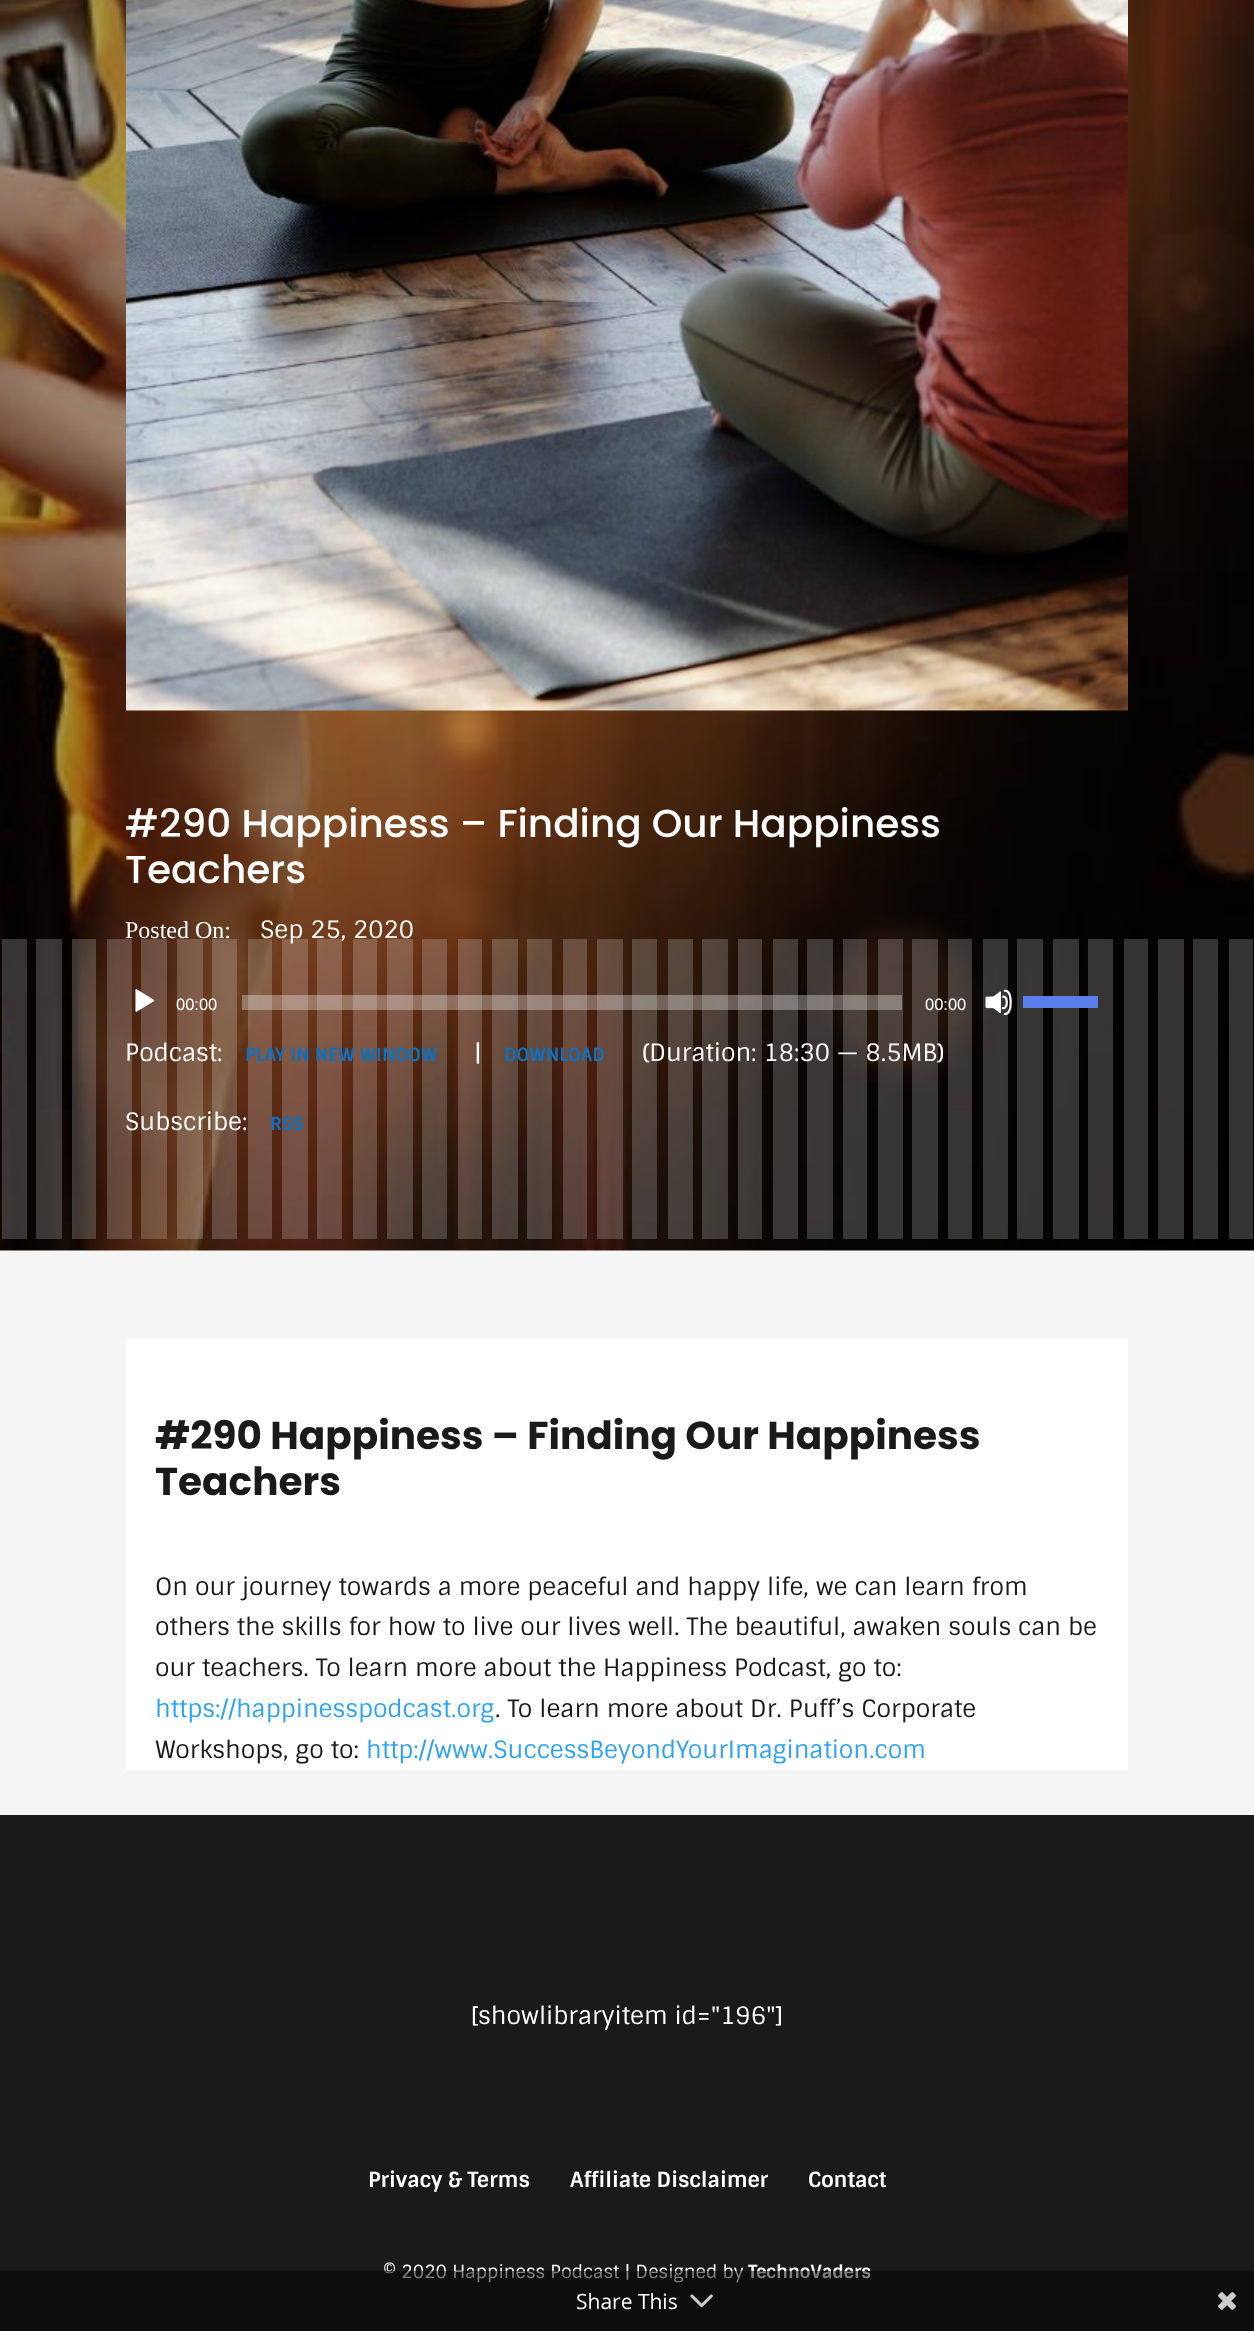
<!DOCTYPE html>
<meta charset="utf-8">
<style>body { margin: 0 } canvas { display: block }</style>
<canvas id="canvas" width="1254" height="2331"></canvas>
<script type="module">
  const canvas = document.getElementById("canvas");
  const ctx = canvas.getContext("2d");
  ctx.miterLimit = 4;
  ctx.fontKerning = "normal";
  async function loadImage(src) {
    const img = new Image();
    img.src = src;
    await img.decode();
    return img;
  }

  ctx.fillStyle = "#f5f5f5";
  ctx.fillRect(0, 0, 1254, 2331);
  ctx.fillStyle = "#ffffff";
  ctx.fillRect(0, 1250, 1254, 1);
  ctx.drawImage(await loadImage("img1.png"), 0, 0, 1254, 1251);
  ctx.drawImage(await loadImage("img2.png"), 126, 0, 1002, 711);
  ctx.font = "500 39px Poppins";
  ctx.fillText("#290 Happiness – Finding Our Happiness", 125, 837);
  ctx.fillText("Teachers", 125, 883);
  ctx.font = "24px Liberation Serif";
  ctx.fillText("Posted On:", 125, 938);
  ctx.fillStyle = "rgba(255, 255, 255, 0.2)";
  ctx.fillRect(248, 939, 24, 300);
  ctx.fillRect(282, 939, 26, 300);
  ctx.fillRect(317, 939, 25, 300);
  ctx.fillRect(353, 939, 24, 300);
  ctx.fillRect(387, 939, 26, 300);
  ctx.font = "24px Sintony";
  ctx.fillStyle = "#ffffff";
  ctx.fillText("Sep 25, 2020", 260, 938);
  ctx.fillStyle = "rgba(255, 255, 255, 0.2)";
  ctx.fillRect(141, 939, 26, 300);
  ctx.drawImage(await loadImage("img3.png"), 135, 989, 20, 23);
  ctx.fillRect(177, 939, 26, 300);
  ctx.fillRect(212, 939, 25, 300);
  ctx.font = "16.5px Liberation Sans";
  ctx.fillStyle = "#ffffff";
  ctx.fillText("00:00", 176, 1010);
  ctx.fillStyle = "rgba(255, 255, 255, 0.2)";
  ctx.fillRect(422, 939, 25, 300);
  ctx.fillRect(458, 939, 24, 300);
  ctx.fillRect(492, 939, 26, 300);
  ctx.fillRect(527, 939, 25, 300);
  ctx.fillRect(563, 939, 24, 300);
  ctx.fillRect(597, 939, 26, 300);
  ctx.fillRect(632, 939, 25, 300);
  ctx.fillRect(668, 939, 25, 300);
  ctx.fillRect(702, 939, 26, 300);
  ctx.fillRect(738, 939, 24, 300);
  ctx.fillRect(773, 939, 25, 300);
  ctx.fillRect(807, 939, 26, 300);
  ctx.fillRect(843, 939, 24, 300);
  ctx.fillRect(878, 939, 25, 300);
  ctx.fillStyle = "rgba(255, 255, 255, 0.33)";
  ctx.fillRect(242, 995, 660, 15);
  ctx.fillStyle = "rgba(255, 255, 255, 0.2)";
  ctx.fillRect(912, 939, 26, 300);
  ctx.fillRect(948, 939, 24, 300);
  ctx.fillStyle = "#ffffff";
  ctx.fillText("00:00", 925, 1010);
  ctx.fillStyle = "rgba(255, 255, 255, 0.2)";
  ctx.fillRect(983, 939, 25, 300);
  ctx.drawImage(await loadImage("img4.png"), 985, 989, 27, 27);
  ctx.fillRect(1017, 939, 26, 300);
  ctx.fillRect(1053, 939, 26, 300);
  ctx.fillRect(1088, 939, 25, 300);
  ctx.fillStyle = "#5b7eed";
  ctx.fillRect(1023, 996, 75, 12);
  ctx.fillStyle = "rgba(255, 255, 255, 0.2)";
  ctx.fillRect(107, 939, 25, 300);
  ctx.font = "24px Sintony";
  ctx.fillStyle = "#ffffff";
  ctx.fillText("Podcast:", 125, 1061);
  ctx.font = "bold 18px Sintony";
  ctx.fillStyle = "#0c71c3";
  ctx.fillText("PLAY IN NEW WINDOW", 245, 1061);
  ctx.font = "24px Sintony";
  ctx.fillStyle = "#ffffff";
  ctx.fillText("|", 474, 1061);
  ctx.font = "bold 18px Sintony";
  ctx.fillStyle = "#0c71c3";
  ctx.fillText("DOWNLOAD", 504, 1061);
  ctx.font = "24px Sintony";
  ctx.fillStyle = "#ffffff";
  ctx.fillText("(Duration: 18:30 — 8.5MB)", 642, 1061);
  ctx.fillText("Subscribe:", 125, 1130);
  ctx.font = "bold 18px Sintony";
  ctx.fillStyle = "#0c71c3";
  ctx.fillText("RSS", 270, 1130);
  ctx.fillStyle = "rgba(255, 255, 255, 0.2)";
  ctx.fillRect(2, 939, 25, 300);
  ctx.fillRect(36, 939, 26, 300);
  ctx.fillRect(72, 939, 24, 300);
  ctx.fillStyle = "#353434";
  ctx.fillRect(1124, 939, 24, 300);
  ctx.fillStyle = "rgba(255, 255, 255, 0.2)";
  ctx.fillRect(1158, 939, 26, 300);
  ctx.fillStyle = "#353434";
  ctx.fillRect(1193, 939, 25, 300);
  ctx.fillStyle = "#343434";
  ctx.fillRect(1229, 939, 24, 300);
  ctx.fillStyle = "#ffffff";
  ctx.fillRect(126, 1338, 1002, 432);
  ctx.font = "bold 39px Poppins";
  ctx.fillStyle = "#1a1a1a";
  ctx.fillText("#290 Happiness – Finding Our Happiness", 155, 1449);
  ctx.fillText("Teachers", 155, 1495);
  ctx.font = "24px Sintony";
  ctx.fillText("On our journey towards a more peaceful and happy life, we can learn from", 155, 1595);
  ctx.fillText("others the skills for how to live our lives well. The beautiful, awaken souls can be", 155, 1635);
  ctx.fillText("our teachers. To learn more about the Happiness Podcast, go to:", 155, 1676);
  ctx.fillStyle = "#2ea3f2";
  ctx.fillText("https://happinesspodcast.org", 155, 1717);
  ctx.fillStyle = "#1a1a1a";
  ctx.fillText(". To learn more about Dr. Puff’s Corporate", 495, 1717);
  ctx.fillText("Workshops, go to:", 155, 1758);
  ctx.fillStyle = "#2ea3f2";
  ctx.fillText("http://www.SuccessBeyondYourImagination.com", 366, 1758);
  ctx.fillStyle = "#1a1a1a";
  ctx.fillRect(0, 1815, 1254, 516);
  ctx.fillStyle = "#ffffff";
  ctx.fillText("[showlibraryitem id=\"196\"]", 471, 2024);
  ctx.font = "bold 21px Sintony";
  ctx.fillText("Privacy & Terms", 368, 2187);
  ctx.fillText("Affiliate Disclaimer", 570, 2187);
  ctx.fillText("Contact", 808, 2187);
  ctx.font = "18px Sintony";
  ctx.fillText("© 2020 Happiness Podcast | Designed by", 383, 2278);
  ctx.font = "bold 18px Sintony";
  ctx.fillText("TechnoVaders", 748, 2278);
  ctx.fillStyle = "rgba(0, 0, 0, 0.5)";
  ctx.fillRect(0, 2271, 1254, 60);
  ctx.font = "21px Open Sans";
  ctx.fillStyle = "#ffffff";
  ctx.fillText("Share This", 576, 2309);
  ctx.drawImage(await loadImage("img5.png"), 690, 2294, 23, 14);
  ctx.drawImage(await loadImage("img6.png"), 1218, 2292, 18, 18);
</script>
